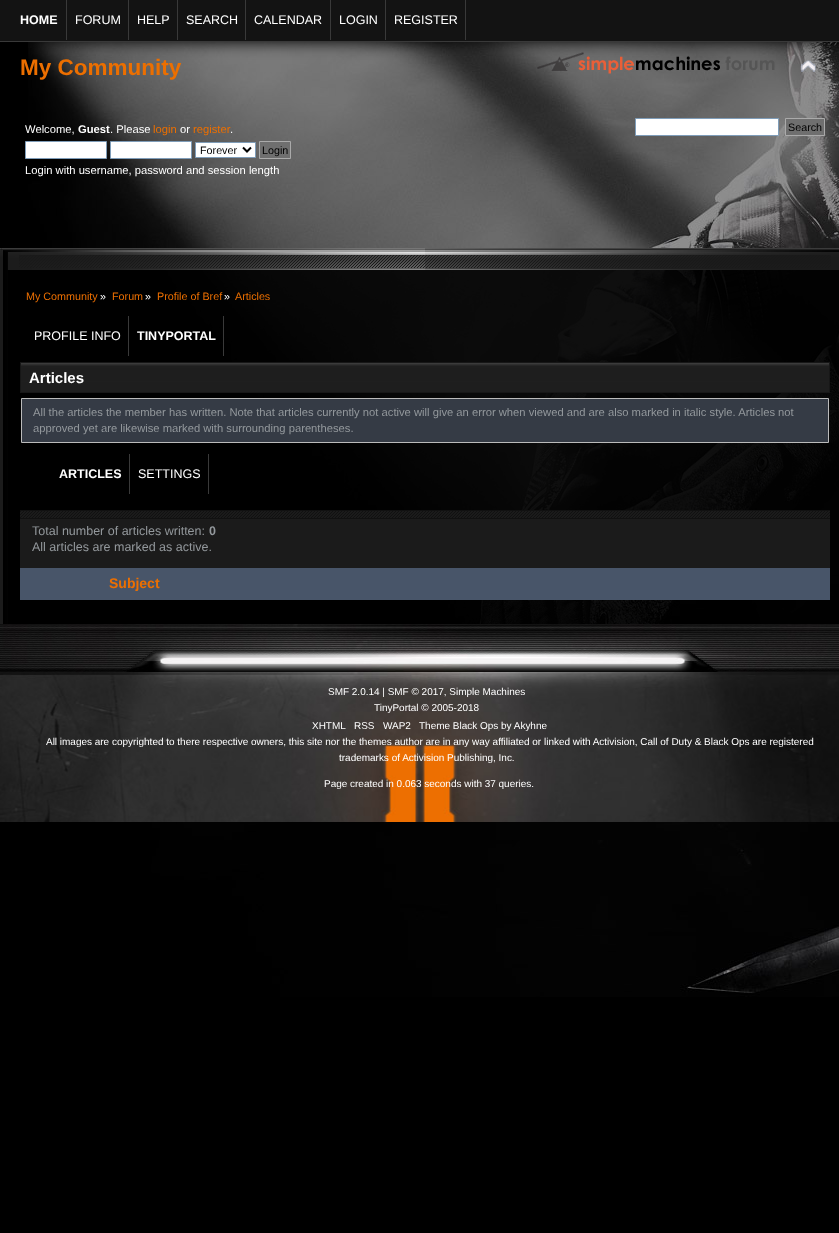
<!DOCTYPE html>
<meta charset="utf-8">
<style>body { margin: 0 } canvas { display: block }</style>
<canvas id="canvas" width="839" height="1233"></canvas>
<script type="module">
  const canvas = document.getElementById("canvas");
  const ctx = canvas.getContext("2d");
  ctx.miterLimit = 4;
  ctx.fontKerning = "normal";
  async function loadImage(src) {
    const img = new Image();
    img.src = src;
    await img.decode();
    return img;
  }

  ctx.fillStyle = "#000000";
  ctx.fillRect(0, 0, 839, 1233);
  ctx.drawImage(await loadImage("img1.png"), 28, 42, 811, 955);
  ctx.drawImage(await loadImage("img2.png"), 537, 52, 238, 22);
  ctx.drawImage(await loadImage("img3.png"), 800, 60, 16, 12);
  ctx.filter = "blur(7.5px)";
  ctx.beginPath();
  ctx.rect(5, 0, 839, 42);
  ctx.fill();
  ctx.filter = "none";
  ctx.fillStyle = "#131313";
  ctx.fillRect(0, 0, 839, 41);
  ctx.fillStyle = "#393939";
  ctx.fillRect(0, 41, 839, 1);
  ctx.fillRect(66, 0, 1, 40);
  ctx.font = "bold 12.5px Liberation Sans";
  ctx.fillStyle = "#ffffff";
  ctx.fillText("HOME", 20, 24);
  ctx.fillStyle = "#393939";
  ctx.fillRect(128, 0, 1, 40);
  ctx.font = "12.5px Liberation Sans";
  ctx.fillStyle = "#ffffff";
  ctx.fillText("FORUM", 75, 24);
  ctx.fillStyle = "#393939";
  ctx.fillRect(177, 0, 1, 40);
  ctx.fillStyle = "#ffffff";
  ctx.fillText("HELP", 137, 24);
  ctx.fillStyle = "#393939";
  ctx.fillRect(245, 0, 1, 40);
  ctx.fillStyle = "#ffffff";
  ctx.fillText("SEARCH", 186, 24);
  ctx.fillStyle = "#393939";
  ctx.fillRect(330, 0, 1, 40);
  ctx.fillStyle = "#ffffff";
  ctx.fillText("CALENDAR", 254, 24);
  ctx.fillStyle = "#393939";
  ctx.fillRect(385, 0, 1, 40);
  ctx.fillStyle = "#ffffff";
  ctx.fillText("LOGIN", 339, 24);
  ctx.fillStyle = "#393939";
  ctx.fillRect(465, 0, 1, 40);
  ctx.fillStyle = "#ffffff";
  ctx.fillText("REGISTER", 394, 24);
  ctx.font = "bold 22.5px Liberation Sans";
  ctx.fillStyle = "#ec6f00";
  ctx.fillText("My Community", 20, 75);
  ctx.font = "11.23px Liberation Sans";
  ctx.fillStyle = "#ffffff";
  ctx.fillText("Welcome,", 25, 133);
  ctx.font = "bold 11.23px Liberation Sans";
  ctx.fillText("Guest", 78, 133);
  ctx.font = "11.23px Liberation Sans";
  ctx.fillText(". Please", 110, 133);
  ctx.fillStyle = "#ec6f00";
  ctx.fillText("login", 153, 133);
  ctx.fillStyle = "#ffffff";
  ctx.fillText("or", 180, 133);
  ctx.fillStyle = "#ec6f00";
  ctx.fillText("register", 193, 133);
  ctx.fillStyle = "#ffffff";
  ctx.fillText(".", 230, 133);
  ctx.beginPath();
  ctx.rect(25.5, 141.5, 81, 17);
  ctx.fill();
  ctx.strokeStyle = "#7f9db9";
  ctx.stroke();
  ctx.beginPath();
  ctx.rect(110.5, 141.5, 81, 17);
  ctx.fill();
  ctx.stroke();
  ctx.beginPath();
  ctx.rect(195.5, 142.5, 60, 15);
  ctx.fill();
  ctx.stroke();
  ctx.beginPath();
  ctx.moveTo(243, 147.5);
  ctx.lineTo(247, 151.5);
  ctx.lineTo(251, 147.5);
  ctx.strokeStyle = "#000000";
  ctx.lineWidth = 2;
  ctx.stroke();
  ctx.font = "10.75px Liberation Sans";
  ctx.fillStyle = "#000000";
  ctx.fillText("Forever", 200, 154);
  ctx.fillStyle = "#6f6f6f";
  ctx.beginPath();
  ctx.rect(259.5, 141.5, 31, 17);
  ctx.fill();
  ctx.strokeStyle = "#aaaaaa";
  ctx.lineWidth = 1;
  ctx.stroke();
  ctx.fillStyle = "#000000";
  ctx.fillText("Login", 262, 154);
  ctx.font = "11.23px Liberation Sans";
  ctx.fillStyle = "#ffffff";
  ctx.fillText("Login with username, password and session length", 25, 174);
  ctx.beginPath();
  ctx.rect(635.5, 118.5, 143, 17);
  ctx.fill();
  ctx.strokeStyle = "#7f9db9";
  ctx.stroke();
  ctx.fillStyle = "#6f6f6f";
  ctx.beginPath();
  ctx.rect(785.5, 118.5, 39, 17);
  ctx.fill();
  ctx.strokeStyle = "#aaaaaa";
  ctx.stroke();
  ctx.font = "10.75px Liberation Sans";
  ctx.fillStyle = "#000000";
  ctx.fillText("Search", 788, 131);
  ctx.drawImage(await loadImage("img4.png"), 0, 248, 425, 22);
  ctx.drawImage(await loadImage("img5.png"), 425, 248, 414, 22);
  ctx.drawImage(await loadImage("img6.png"), 0, 270, 839, 354);
  ctx.fillStyle = "#ec6f00";
  ctx.fillText("My Community", 26, 300);
  ctx.fillStyle = "#ffffff";
  ctx.fillText("»", 100, 300);
  ctx.fillStyle = "#ec6f00";
  ctx.fillText("Forum", 112, 300);
  ctx.fillStyle = "#ffffff";
  ctx.fillText("»", 145, 300);
  ctx.fillStyle = "#ec6f00";
  ctx.fillText("Profile of Bref", 157, 300);
  ctx.fillStyle = "#ffffff";
  ctx.fillText("»", 224, 300);
  ctx.fillStyle = "#ec6f00";
  ctx.fillText("Articles", 235, 300);
  ctx.fillStyle = "#393939";
  ctx.fillRect(128, 316, 1, 40);
  ctx.font = "12.5px Liberation Sans";
  ctx.fillStyle = "#ffffff";
  ctx.fillText("PROFILE INFO", 34, 340);
  ctx.fillStyle = "#393939";
  ctx.fillRect(223, 316, 1, 40);
  ctx.font = "bold 12.5px Liberation Sans";
  ctx.fillStyle = "#ffffff";
  ctx.fillText("TINYPORTAL", 137, 340);
  ctx.drawImage(await loadImage("img7.png"), 20, 362, 810, 31);
  ctx.fillStyle = "#171717";
  ctx.fillRect(829, 363, 1, 29);
  ctx.font = "bold 15px Liberation Sans";
  ctx.fillStyle = "#ffffff";
  ctx.fillText("Articles", 29, 383);
  ctx.fillStyle = "#353b45";
  ctx.beginPath();
  ctx.rect(21.5, 398.5, 807, 44);
  ctx.fill();
  ctx.strokeStyle = "#bbbbbb";
  ctx.stroke();
  ctx.font = "11.23px Liberation Sans";
  ctx.fillStyle = "#93989c";
  ctx.fillText("All the articles the member has written. Note that articles currently not active will give an error when viewed and are also marked in italic style. Articles not", 33, 416);
  ctx.fillText("approved yet are likewise marked with surrounding parentheses.", 33, 432);
  ctx.fillStyle = "#393939";
  ctx.fillRect(129, 454, 1, 40);
  ctx.font = "bold 12.5px Liberation Sans";
  ctx.fillStyle = "#ffffff";
  ctx.fillText("ARTICLES", 59, 478);
  ctx.fillStyle = "#393939";
  ctx.fillRect(208, 454, 1, 40);
  ctx.font = "12.5px Liberation Sans";
  ctx.fillStyle = "#ffffff";
  ctx.fillText("SETTINGS", 138, 478);
  ctx.fillStyle = "#1b1b1b";
  ctx.fillRect(20, 519, 810, 49);
  ctx.drawImage(await loadImage("img8.png"), 20, 510, 810, 9);
  ctx.fillStyle = "#93989c";
  ctx.fillText("Total number of articles written:", 32, 535);
  ctx.font = "bold 12.5px Liberation Sans";
  ctx.fillText("0", 209, 535);
  ctx.font = "12.5px Liberation Sans";
  ctx.fillText("All articles are marked as active.", 32, 551);
  ctx.fillStyle = "#485569";
  ctx.fillRect(20, 568, 810, 32);
  ctx.font = "bold 14px Liberation Sans";
  ctx.fillStyle = "#ec6f00";
  ctx.fillText("Subject", 109, 588);
  ctx.drawImage(await loadImage("img9.png"), 0, 624, 839, 198);
  ctx.font = "9.98px Liberation Sans";
  ctx.fillStyle = "#ffffff";
  ctx.fillText("SMF 2.0.14 | SMF © 2017, Simple Machines", 328, 695);
  ctx.fillText("TinyPortal © 2005-2018", 374, 711);
  ctx.fillText("XHTML", 312, 729);
  ctx.fillText("RSS", 354, 729);
  ctx.fillText("WAP2", 383, 729);
  ctx.fillText("Theme Black Ops by Akyhne", 419, 729);
  ctx.fillText("All images are copyrighted to there respective owners, this site nor the themes author are in any way affiliated or linked with Activision, Call of Duty & Black Ops are registered", 46, 745);
  ctx.fillText("trademarks of Activision Publishing, Inc.", 339, 761);
  ctx.fillText("Page created in 0.063 seconds with 37 queries.", 324, 787);
</script>
